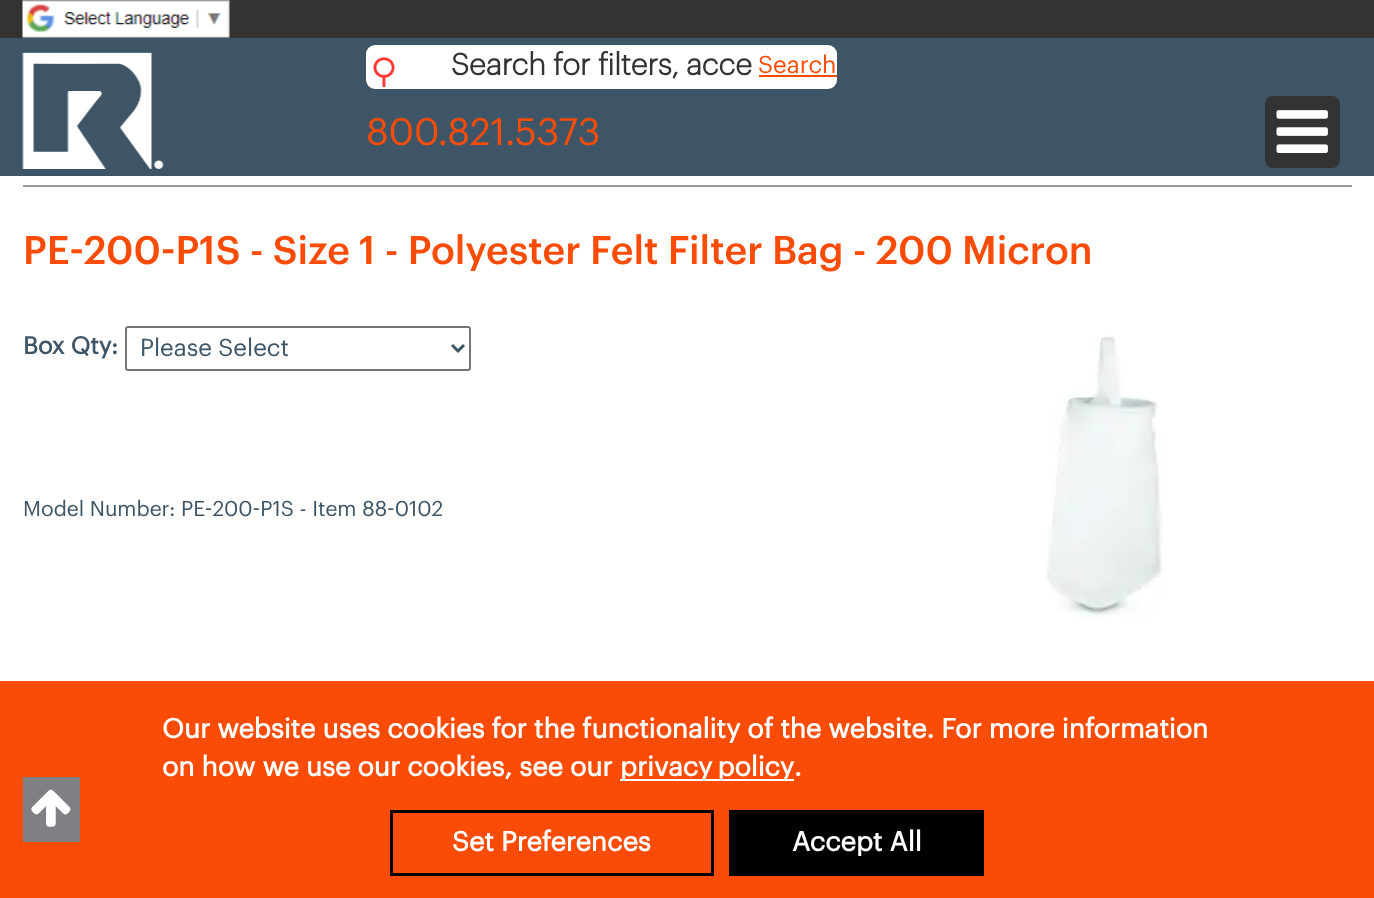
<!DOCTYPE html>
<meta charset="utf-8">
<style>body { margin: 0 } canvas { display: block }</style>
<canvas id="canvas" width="1374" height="898"></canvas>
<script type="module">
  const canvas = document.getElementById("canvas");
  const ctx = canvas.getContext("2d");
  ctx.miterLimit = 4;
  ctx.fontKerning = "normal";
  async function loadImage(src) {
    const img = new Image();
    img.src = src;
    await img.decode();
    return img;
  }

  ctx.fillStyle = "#ffffff";
  ctx.fillRect(0, 0, 1374, 898);
  ctx.fillStyle = "#333333";
  ctx.fillRect(0, 0, 1374, 38);
  ctx.drawImage(await loadImage("img1.png"), 22, 0, 208, 38);
  ctx.fillStyle = "#3e5567";
  ctx.fillRect(0, 38, 1374, 138);
  ctx.drawImage(await loadImage("img2.png"), 22, 52, 142, 117);
  ctx.fillStyle = "#ffffff";
  ctx.beginPath();
  ctx.roundRect(366, 45, 471, 44, 9);
  ctx.fill();
  ctx.drawImage(await loadImage("img3.png"), 373, 57, 22, 30);
  ctx.font = "bold 30px 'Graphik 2'";
  ctx.fillStyle = "#333333";
  ctx.fillText("Search for filters, acce", 451, 75);
  ctx.font = "24px Graphik";
  ctx.fillStyle = "#fa4c07";
  ctx.fillText("Search", 758, 73);
  ctx.fillRect(759, 75, 78, 2);
  ctx.font = "37.5px Graphik";
  ctx.fillText("800.821.5373", 366, 145);
  ctx.fillStyle = "#333333";
  ctx.beginPath();
  ctx.roundRect(1265, 96, 75, 72, 8);
  ctx.fill();
  ctx.drawImage(await loadImage("img4.png"), 1276, 110, 52, 43);
  ctx.fillStyle = "#999999";
  ctx.fillRect(23, 185, 1329, 2);
  ctx.font = "500 39px Graphik";
  ctx.fillStyle = "#fa4c07";
  ctx.fillText("PE-200-P1S - Size 1 - Polyester Felt Filter Bag - 200 Micron", 23, 264);
  ctx.font = "bold 24px Graphik";
  ctx.fillStyle = "#3e5567";
  ctx.fillText("Box Qty:", 23, 354);
  ctx.beginPath();
  ctx.roundRect(126, 327, 344, 43, 2);
  ctx.strokeStyle = "#767676";
  ctx.lineWidth = 2;
  ctx.stroke();
  ctx.beginPath();
  ctx.moveTo(452, 345);
  ctx.lineTo(458, 351);
  ctx.lineTo(464, 345);
  ctx.strokeStyle = "#3e5567";
  ctx.lineWidth = 3;
  ctx.stroke();
  ctx.font = "24px Graphik";
  ctx.fillText("Please Select", 140, 356);
  ctx.drawImage(await loadImage("img5.png"), 1046, 335, 117, 285);
  ctx.font = "21px Graphik";
  ctx.fillText("Model Number: PE-200-P1S - Item 88-0102", 23, 516);
  ctx.fillStyle = "#fa4c07";
  ctx.fillRect(0, 681, 1374, 217);
  ctx.font = "bold 27px Graphik";
  ctx.fillStyle = "#ffffff";
  ctx.fillText("Our website uses cookies for the functionality of the website. For more information", 162, 738);
  ctx.fillText("on how we use our cookies, see our", 162, 776);
  ctx.fillRect(620, 779, 174, 2);
  ctx.wordSpacing = "-2px";
  ctx.fillText("privacy policy", 620, 776);
  ctx.wordSpacing = "0px";
  ctx.fillText(".", 794, 776);
  ctx.strokeStyle = "#000000";
  ctx.strokeRect(391.5, 811.5, 321, 63);
  ctx.fillText("Set Preferences", 452, 851);
  ctx.fillStyle = "#000000";
  ctx.fillRect(729, 810, 255, 66);
  ctx.fillStyle = "#ffffff";
  ctx.fillText("Accept All", 792, 851);
  ctx.fillStyle = "#807f83";
  ctx.fillRect(23, 777, 57, 65);
  ctx.drawImage(await loadImage("img6.png"), 31, 789, 40, 38);
</script>
